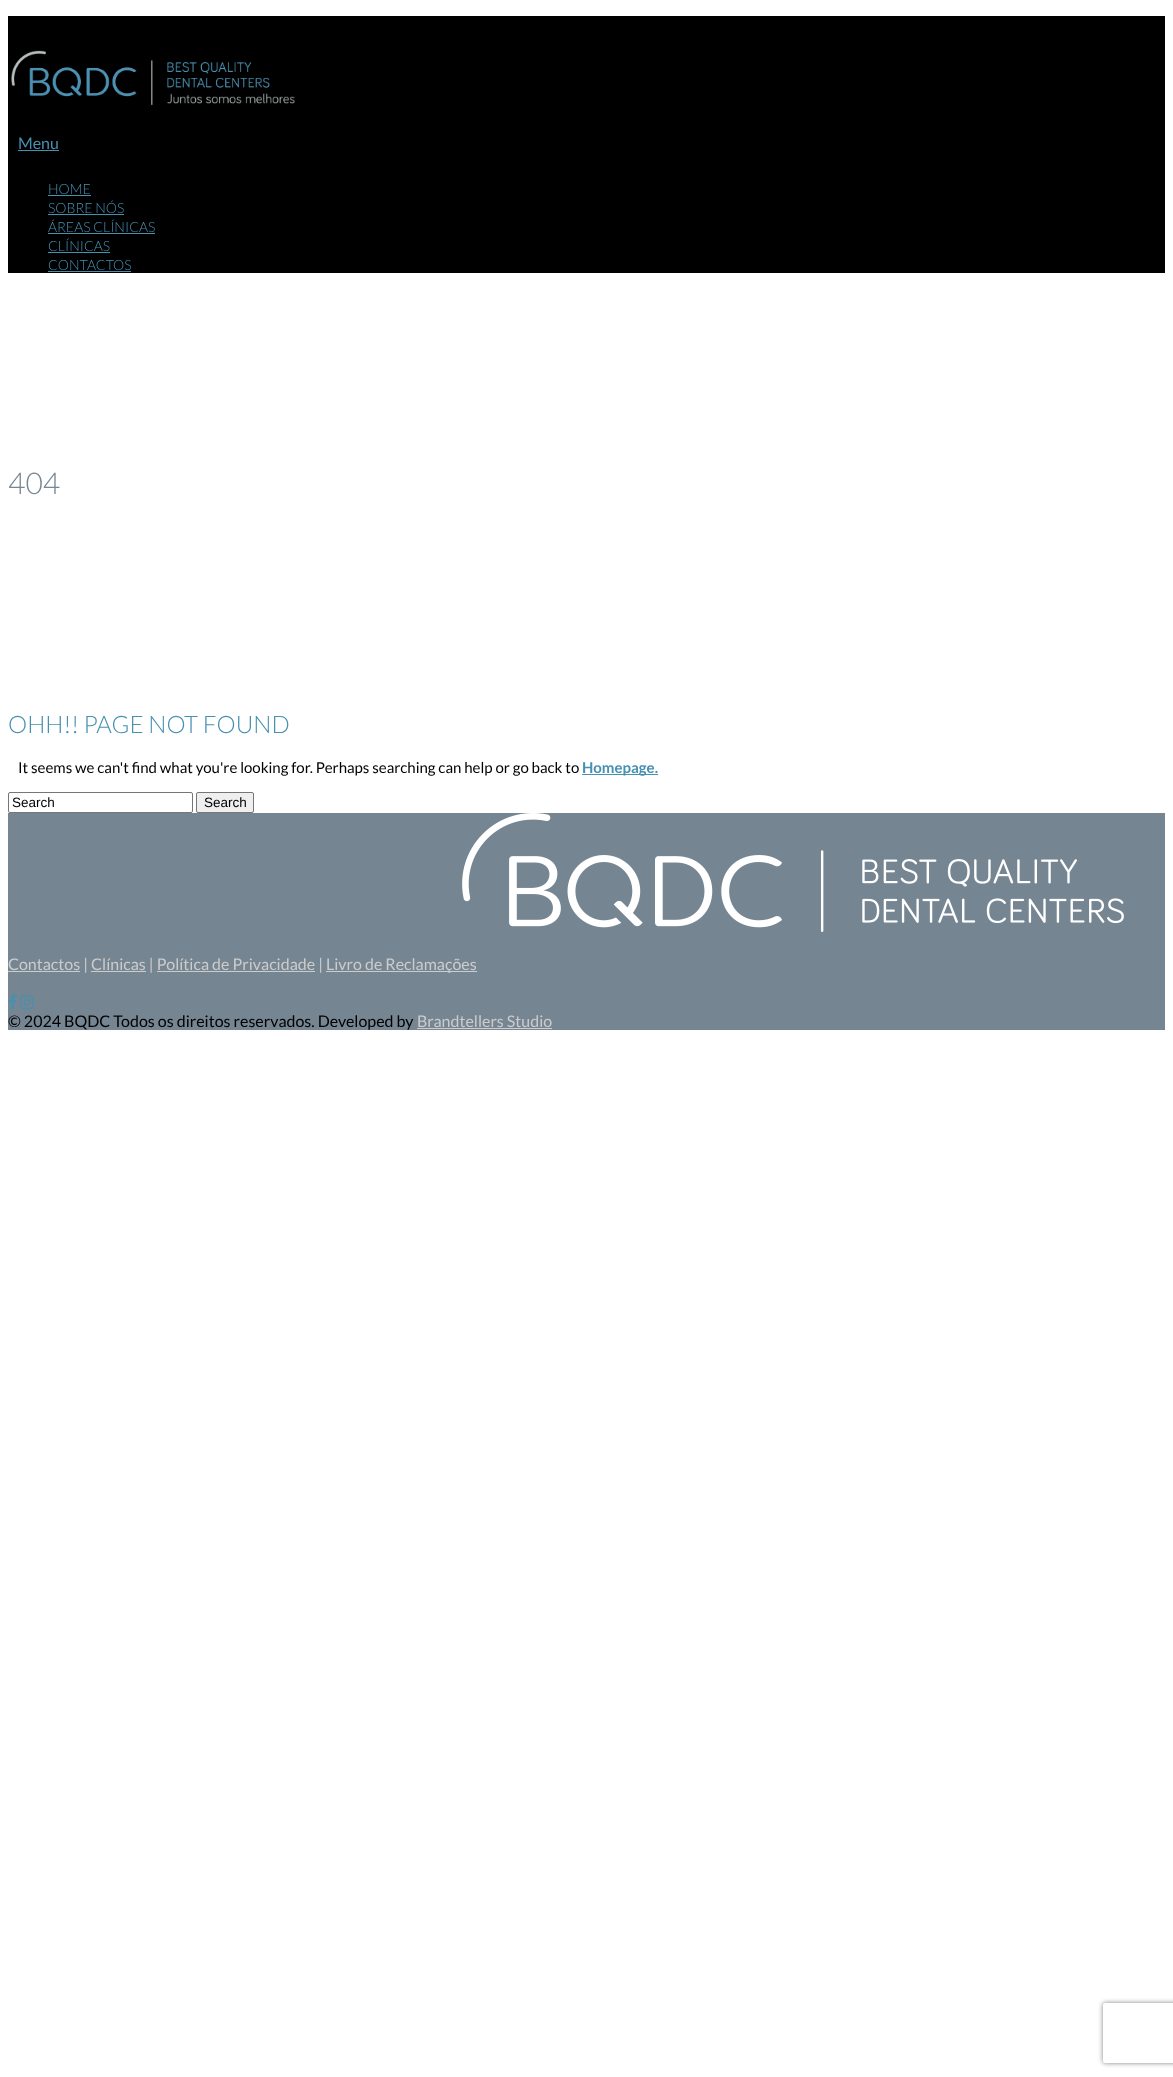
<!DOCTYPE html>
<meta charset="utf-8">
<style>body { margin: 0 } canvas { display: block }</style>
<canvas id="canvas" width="1173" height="2077"></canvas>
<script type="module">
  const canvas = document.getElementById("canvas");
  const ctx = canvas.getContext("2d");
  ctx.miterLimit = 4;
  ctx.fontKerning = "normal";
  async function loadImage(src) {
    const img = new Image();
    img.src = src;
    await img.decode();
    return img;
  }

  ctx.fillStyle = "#ffffff";
  ctx.fillRect(0, 0, 1173, 2077);
  ctx.fillStyle = "#000000";
  ctx.fillRect(8, 16, 1157, 257);
  ctx.drawImage(await loadImage("img1.png"), 11, 50, 284, 55);
  ctx.font = "16px Lato";
  ctx.fillStyle = "#4690b1";
  ctx.fillText("Menu", 18, 149);
  ctx.fillRect(18, 150, 41, 1);
  ctx.font = "300 14px Lato";
  ctx.fillText("HOME", 48, 194);
  ctx.fillRect(48, 195, 43, 1);
  ctx.fillText("SOBRE NÓS", 48, 213);
  ctx.fillRect(48, 214, 76, 1);
  ctx.fillText("ÁREAS CLÍNICAS", 48, 232);
  ctx.fillRect(48, 233, 107, 1);
  ctx.fillText("CLÍNICAS", 48, 251);
  ctx.fillRect(48, 252, 62, 1);
  ctx.fillText("CONTACTOS", 48, 270);
  ctx.fillRect(48, 271, 83, 1);
  ctx.font = "300 30px Lato";
  ctx.fillStyle = "#778693";
  ctx.fillText("404", 8, 494);
  ctx.font = "300 24px Lato";
  ctx.fillStyle = "#4690b1";
  ctx.fillText("OHH!! PAGE NOT FOUND", 8, 733);
  ctx.font = "15px Lato";
  ctx.fillStyle = "#000000";
  ctx.fillText("It seems we can't find what you're looking for. Perhaps searching can help or go back to", 18, 773);
  ctx.fillStyle = "#4690b1";
  ctx.fillRect(582, 774, 76, 1);
  ctx.font = "bold 15px Lato";
  ctx.fillText("Homepage.", 582, 773);
  ctx.beginPath();
  ctx.roundRect(8.5, 792.5, 184, 20, 1.5);
  ctx.strokeStyle = "#767676";
  ctx.stroke();
  ctx.font = "13.5px Liberation Sans";
  ctx.fillStyle = "#000000";
  ctx.fillText("Search", 12, 807);
  ctx.fillStyle = "#efefef";
  ctx.beginPath();
  ctx.roundRect(196.5, 792.5, 57, 20, 1.5);
  ctx.fill();
  ctx.stroke();
  ctx.fillStyle = "#000000";
  ctx.fillText("Search", 204, 807);
  ctx.fillStyle = "#758592";
  ctx.fillRect(8, 813, 1157, 217);
  ctx.drawImage(await loadImage("img2.png"), 462, 813, 662, 119);
  ctx.fillStyle = "#cccccc";
  ctx.fillRect(8, 971, 72, 1);
  ctx.font = "16px Lato";
  ctx.fillText("Contactos | Clínicas | Política de Privacidade |", 8, 970);
  ctx.fillRect(326, 971, 151, 1);
  ctx.fillText("Livro de Reclamações", 326, 970);
  ctx.fillRect(91, 971, 55, 1);
  ctx.fillRect(157, 971, 158, 1);
  ctx.drawImage(await loadImage("img3.png"), 8, 994, 9, 16);
  ctx.drawImage(await loadImage("img4.png"), 20, 995, 14, 15);
  ctx.fillStyle = "#000000";
  ctx.fillText("© 2024 BQDC Todos os direitos reservados. Developed by", 8, 1027);
  ctx.fillStyle = "#cccccc";
  ctx.fillText("Brandtellers Studio", 417, 1027);
  ctx.fillRect(417, 1028, 135, 1);
  ctx.save();
  ctx.beginPath();
  ctx.moveTo(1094, 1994);
  ctx.lineTo(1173, 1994);
  ctx.lineTo(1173, 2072);
  ctx.lineTo(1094, 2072);
  ctx.closePath();
  ctx.moveTo(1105, 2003);
  ctx.lineTo(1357, 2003);
  ctx.bezierCurveTo(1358, 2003, 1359, 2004, 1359, 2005);
  ctx.lineTo(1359, 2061);
  ctx.bezierCurveTo(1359, 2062, 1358, 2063, 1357, 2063);
  ctx.lineTo(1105, 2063);
  ctx.bezierCurveTo(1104, 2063, 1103, 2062, 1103, 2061);
  ctx.lineTo(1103, 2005);
  ctx.bezierCurveTo(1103, 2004, 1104, 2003, 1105, 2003);
  ctx.closePath();
  ctx.clip("evenodd");
  ctx.fillStyle = "#808080";
  ctx.filter = "blur(2.5px)";
  ctx.beginPath();
  ctx.roundRect(1103, 2003, 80, 60, 2);
  ctx.fill();
  ctx.filter = "none";
  ctx.restore();
</script>
